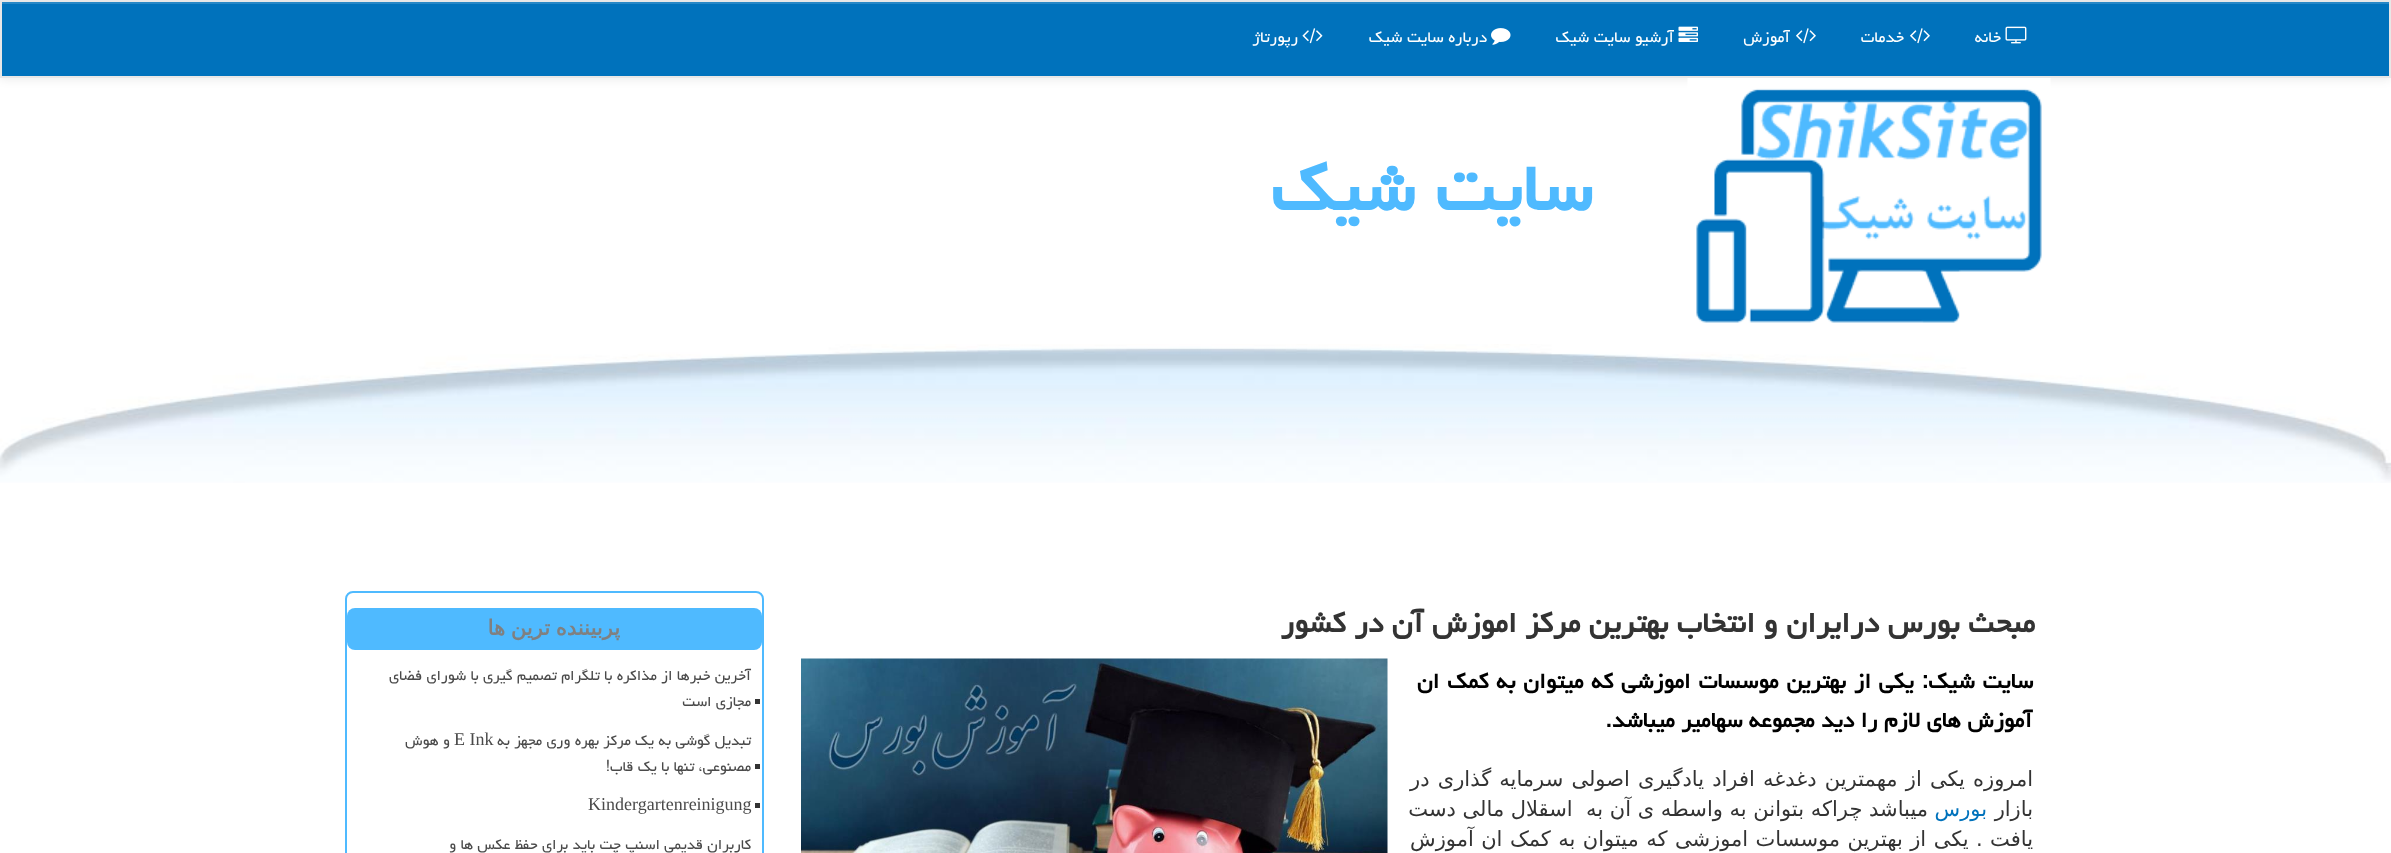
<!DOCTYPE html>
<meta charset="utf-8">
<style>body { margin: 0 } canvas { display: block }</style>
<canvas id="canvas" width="2391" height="853"></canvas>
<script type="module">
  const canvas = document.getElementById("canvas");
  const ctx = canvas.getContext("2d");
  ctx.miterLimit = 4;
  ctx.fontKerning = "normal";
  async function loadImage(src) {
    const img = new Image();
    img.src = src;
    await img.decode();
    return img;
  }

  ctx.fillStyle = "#ffffff";
  ctx.fillRect(0, 0, 2391, 853);
  ctx.fillStyle = "rgba(0, 0, 0, 0.07)";
  ctx.filter = "blur(4px)";
  ctx.beginPath();
  ctx.rect(0, 2, 2391, 78);
  ctx.fill();
  ctx.filter = "none";
  ctx.fillStyle = "#0072bc";
  ctx.fillRect(2, 4, 2387, 72);
  ctx.fillStyle = "#2687c6";
  ctx.fillRect(2, 2, 2388, 2);
  ctx.strokeStyle = "#e7e7e7";
  ctx.lineWidth = 2;
  ctx.strokeRect(1, 1, 2389, 76);
  ctx.drawImage(await loadImage("img1.png"), 2005, 26, 22, 18);
  ctx.direction = "rtl";
  ctx.font = "19.5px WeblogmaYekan";
  ctx.fillStyle = "#ffffff";
  ctx.fillText("خانه", 2001, 42);
  ctx.drawImage(await loadImage("img2.png"), 1910, 28, 20, 16);
  ctx.fillText("خدمات", 1904, 42);
  ctx.drawImage(await loadImage("img2.png"), 1796, 28, 20, 16);
  ctx.fillText("آموزش", 1790, 42);
  ctx.drawImage(await loadImage("img3.png"), 1678, 26, 20, 16);
  ctx.fillText("آرشیو سایت شیك", 1674, 42);
  ctx.drawImage(await loadImage("img4.png"), 1491, 28, 20, 17);
  ctx.fillText("درباره سایت شیك", 1487, 42);
  ctx.drawImage(await loadImage("img5.png"), 1302, 28, 21, 16);
  ctx.fillText("رپورتاژ", 1298, 42);
  ctx.drawImage(await loadImage("img6.png"), 1687, 78, 364, 245);
  ctx.font = "bold 84px WeblogmaYekan";
  ctx.fillStyle = "#4fbaff";
  ctx.fillText("سایت شیك", 1592, 210);
  ctx.drawImage(await loadImage("img7.png"), 0, 344, 2391, 139);
  ctx.font = "bold 36px WeblogmaYekan";
  ctx.fillStyle = "#333333";
  ctx.fillText("مبحث بورس درایران و انتخاب بهترین مركز اموزش آن در كشور", 2035, 632);
  ctx.wordSpacing = "1.5px";
  ctx.font = "bold 27px WeblogmaYekan";
  ctx.fillStyle = "#000000";
  ctx.fillText("سایت شیك: یكی از بهترین موسسات اموزشی كه میتوان به كمك ان", 2033, 688);
  ctx.wordSpacing = "0px";
  ctx.fillText("آموزش های لازم را دید مجموعه سهامیر میباشد.", 2032, 727);
  ctx.drawImage(await loadImage("img8.png"), 801, 658, 587, 195);
  ctx.wordSpacing = "1.5px";
  ctx.font = "21px DejaVu Sans";
  ctx.fillStyle = "#333333";
  ctx.fillText("امروزه یکی از مهمترین دغدغه افراد یادگیری اصولی سرمایه گذاری در", 2033, 786);
  ctx.wordSpacing = "0px";
  ctx.fillText("بازار", 2033, 816);
  ctx.fillStyle = "#0072bc";
  ctx.fillText("بورس", 1987, 816);
  ctx.fillStyle = "#333333";
  ctx.fillText("میباشد چراکه بتوانن به واسطه ی آن به  اسقلال مالی دست", 1928, 816);
  ctx.wordSpacing = "0.75px";
  ctx.fillText("یافت . یکی از بهترین موسسات اموزشی که میتوان به کمک ان آموزش", 2033, 846);
  ctx.beginPath();
  ctx.roundRect(346, 592, 417, 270, 7);
  ctx.strokeStyle = "#4fbaff";
  ctx.stroke();
  ctx.fillStyle = "#4fbaff";
  ctx.beginPath();
  ctx.roundRect(347, 608, 415, 42, 8);
  ctx.fill();
  ctx.wordSpacing = "-1px";
  ctx.font = "bold 21px DejaVu Sans";
  ctx.fillStyle = "#808080";
  ctx.fillText("پربیننده ترین ها", 620, 635);
  ctx.fillStyle = "#333333";
  ctx.fillRect(755, 699, 5, 5);
  ctx.wordSpacing = "0px";
  ctx.font = "18px WeblogmaYekan";
  ctx.fillStyle = "#4a4a4a";
  ctx.fillText("آخرین خبرها از مذاکره با تلگرام تصمیم گیری با شورای فضای", 751, 680);
  ctx.fillText("مجازی است", 751, 706);
  ctx.fillStyle = "#333333";
  ctx.fillRect(755, 764, 5, 5);
  ctx.fillStyle = "#4a4a4a";
  ctx.fillText("تبدیل گوشی به یک مرکز بهره وری مجهز به", 751, 745);
  ctx.direction = "ltr";
  ctx.font = "18px Liberation Serif";
  ctx.fillText("E Ink", 454, 745);
  ctx.direction = "rtl";
  ctx.font = "18px WeblogmaYekan";
  ctx.fillText("و هوش", 450, 745);
  ctx.fillText("مصنوعی، تنها با یک قاب!", 751, 771);
  ctx.fillStyle = "#333333";
  ctx.fillRect(755, 803, 5, 5);
  ctx.direction = "ltr";
  ctx.font = "18px Liberation Serif";
  ctx.fillStyle = "#4a4a4a";
  ctx.fillText("Kindergartenreinigung", 588, 810);
  ctx.direction = "rtl";
  ctx.font = "18px WeblogmaYekan";
  ctx.fillText("کاربران قدیمی اسنپ چت باید برای حفظ عکس ها و", 751, 849);
</script>
